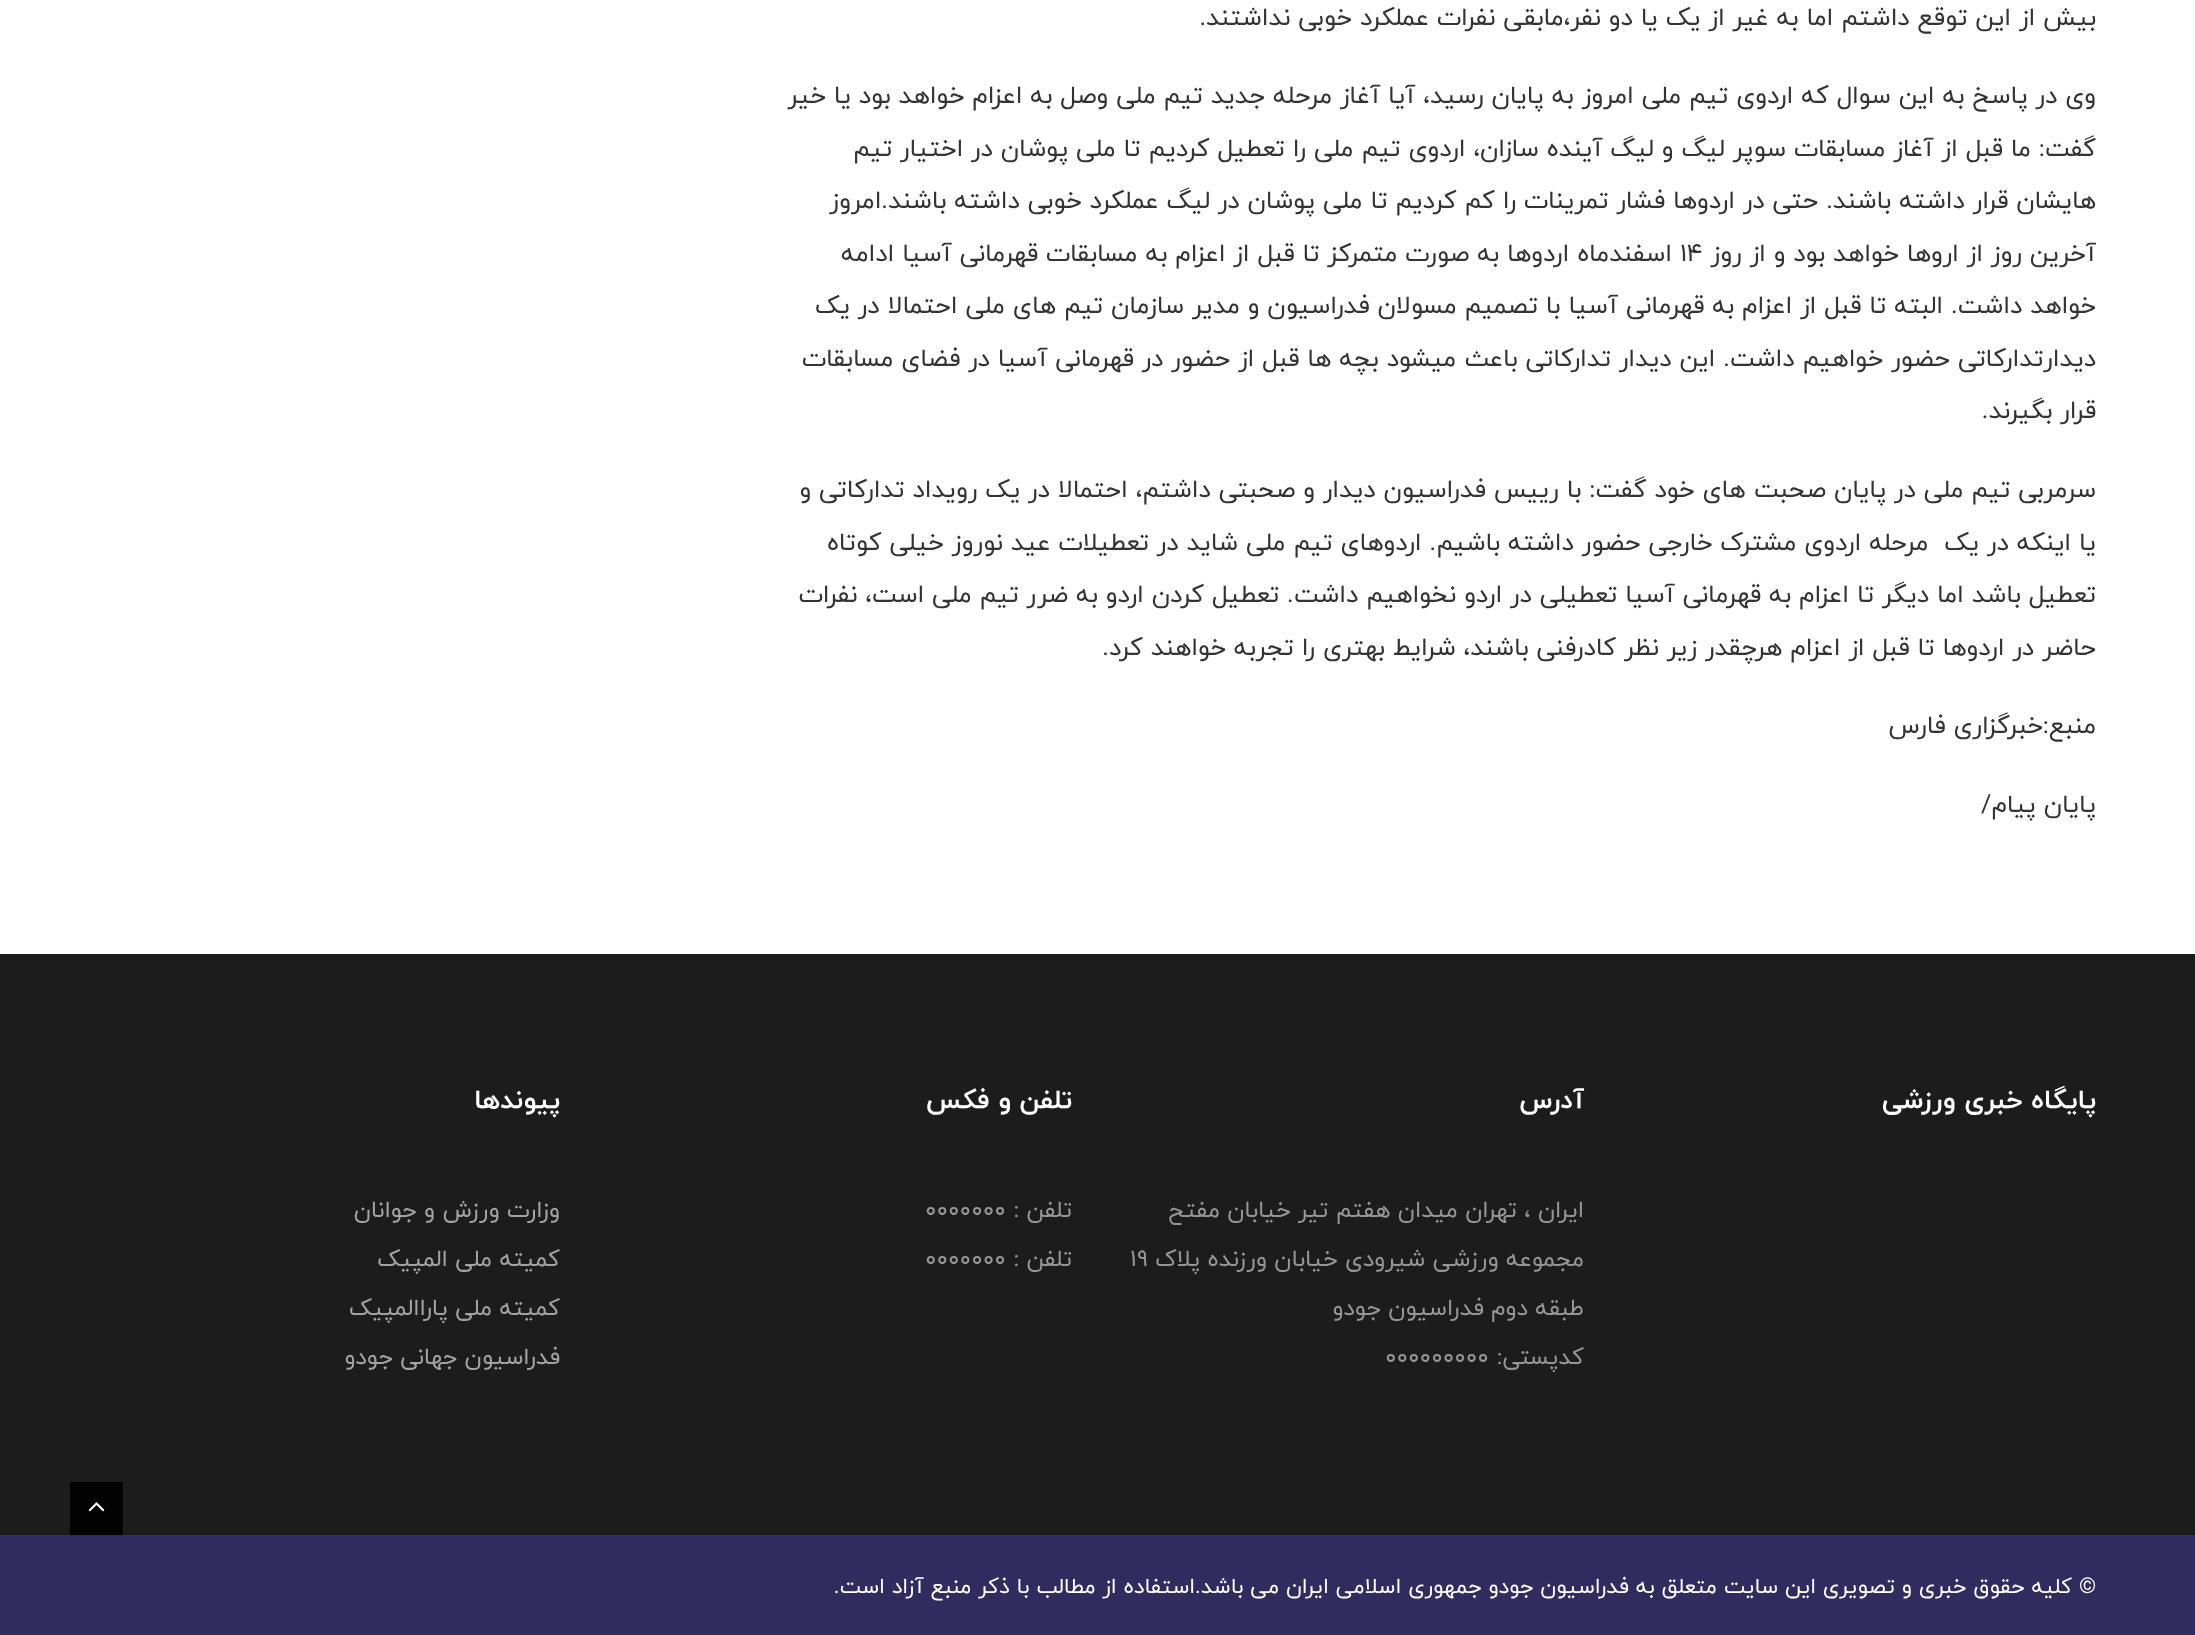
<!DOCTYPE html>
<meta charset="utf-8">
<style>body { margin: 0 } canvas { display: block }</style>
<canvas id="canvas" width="2195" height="1635"></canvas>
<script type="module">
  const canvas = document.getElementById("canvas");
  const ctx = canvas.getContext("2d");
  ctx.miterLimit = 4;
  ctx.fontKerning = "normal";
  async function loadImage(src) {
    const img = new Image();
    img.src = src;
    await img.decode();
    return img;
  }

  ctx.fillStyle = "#ffffff";
  ctx.fillRect(0, 0, 2195, 1635);
  ctx.direction = "rtl";
  ctx.font = "26.25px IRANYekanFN";
  ctx.fillStyle = "#333333";
  ctx.fillText("بیش از این توقع داشتم اما به غیر از یک یا دو نفر،مابقی نفرات عملکرد خوبی نداشتند.", 2096, 25);
  ctx.fillText("وی در پاسخ به این سوال که اردوی تیم ملی امروز به پایان رسید، آیا آغاز مرحله جدید تیم ملی وصل به اعزام خواهد بود یا خیر", 2096, 103);
  ctx.fillText("گفت: ما قبل از آغاز مسابقات سوپر لیگ و لیگ آینده سازان، اردوی تیم ملی را تعطیل کردیم تا ملی پوشان در اختیار تیم", 2096, 156);
  ctx.fillText("هایشان قرار داشته باشند. حتی در اردوها فشار تمرینات را کم کردیم تا ملی پوشان در لیگ عملکرد خوبی داشته باشند.امروز", 2096, 208);
  ctx.fillText("آخرین روز از اروها خواهد بود و از روز", 2096, 261);
  ctx.direction = "ltr";
  ctx.fillText("۱۴", 1680, 261);
  ctx.direction = "rtl";
  ctx.fillText("اسفندماه اردوها به صورت متمرکز تا قبل از اعزام به مسابقات قهرمانی آسیا ادامه", 1672, 261);
  ctx.fillText("خواهد داشت. البته تا قبل از اعزام به قهرمانی آسیا با تصمیم مسولان فدراسیون و مدیر سازمان تیم های ملی احتمالا در یک", 2096, 313);
  ctx.fillText("دیدارتدارکاتی حضور خواهیم داشت. این دیدار تدارکاتی باعث میشود بچه ها قبل از حضور در قهرمانی آسیا در فضای مسابقات", 2096, 366);
  ctx.fillText("قرار بگیرند.", 2096, 418);
  ctx.fillText("سرمربی تیم ملی در پایان صحبت های خود گفت: با رییس فدراسیون دیدار و صحبتی داشتم، احتمالا در یک رویداد تدارکاتی و", 2096, 497);
  ctx.fillText("یا اینکه در یک  مرحله اردوی مشترک خارجی حضور داشته باشیم. اردوهای تیم ملی شاید در تعطیلات عید نوروز خیلی کوتاه", 2096, 550);
  ctx.fillText("تعطیل باشد اما دیگر تا اعزام به قهرمانی آسیا تعطیلی در اردو نخواهیم داشت. تعطیل کردن اردو به ضرر تیم ملی است، نفرات", 2096, 602);
  ctx.fillText("حاضر در اردوها تا قبل از اعزام هرچقدر زیر نظر کادرفنی باشند، شرایط بهتری را تجربه خواهند کرد.", 2096, 655);
  ctx.fillText("منبع:خبرگزاری فارس", 2096, 733);
  ctx.fillText("پایان پیام/", 2096, 812);
  ctx.fillStyle = "#1c1c1c";
  ctx.fillRect(0, 954, 2195, 581);
  ctx.font = "bold 28px IRANYekanFN";
  ctx.fillStyle = "#ffffff";
  ctx.fillText("پایگاه خبری ورزشی", 2096, 1108);
  ctx.fillText("آدرس", 1584, 1108);
  ctx.font = "24.5px IRANYekanFN";
  ctx.fillStyle = "#969696";
  ctx.fillText("ایران ، تهران میدان هفتم تیر خیابان مفتح", 1584, 1217);
  ctx.fillText("مجموعه ورزشی شیرودی خیابان ورزنده پلاک", 1584, 1266);
  ctx.direction = "ltr";
  ctx.fillText("۱۹", 1130, 1266);
  ctx.direction = "rtl";
  ctx.fillText("طبقه دوم فدراسیون جودو", 1584, 1315);
  ctx.fillText("کدپستی:", 1584, 1364);
  ctx.direction = "ltr";
  ctx.fillText("000000000", 1385, 1364);
  ctx.direction = "rtl";
  ctx.font = "bold 28px IRANYekanFN";
  ctx.fillStyle = "#ffffff";
  ctx.fillText("تلفن و فکس", 1072, 1108);
  ctx.font = "24.5px IRANYekanFN";
  ctx.fillStyle = "#969696";
  ctx.fillText("تلفن :", 1072, 1217);
  ctx.direction = "ltr";
  ctx.fillText("0000000", 925, 1217);
  ctx.direction = "rtl";
  ctx.fillText("تلفن :", 1072, 1266);
  ctx.direction = "ltr";
  ctx.fillText("0000000", 925, 1266);
  ctx.direction = "rtl";
  ctx.font = "bold 28px IRANYekanFN";
  ctx.fillStyle = "#ffffff";
  ctx.fillText("پیوندها", 560, 1108);
  ctx.font = "24.5px IRANYekanFN";
  ctx.fillStyle = "#a3a3a3";
  ctx.fillText("وزارت ورزش و جوانان", 560, 1217);
  ctx.fillText("کمیته ملی المپیک", 560, 1266);
  ctx.fillText("کمیته ملی پاراالمپیک", 560, 1315);
  ctx.fillText("فدراسیون جهانی جودو", 560, 1364);
  ctx.fillStyle = "#302c60";
  ctx.fillRect(0, 1535, 2195, 100);
  ctx.fillStyle = "#030303";
  ctx.fillRect(70, 1482, 53, 53);
  ctx.drawImage(await loadImage("img1.png"), 88, 1502, 17, 10);
  ctx.font = "22.75px IRANYekanFN";
  ctx.fillStyle = "#ffffff";
  ctx.fillText("© کليه حقوق خبری و تصويری اين سايت متعلق به فدراسیون جودو جمهوری اسلامی ایران می باشد.استفاده از مطالب با ذكر منبع آزاد است.", 2096, 1593);
</script>
